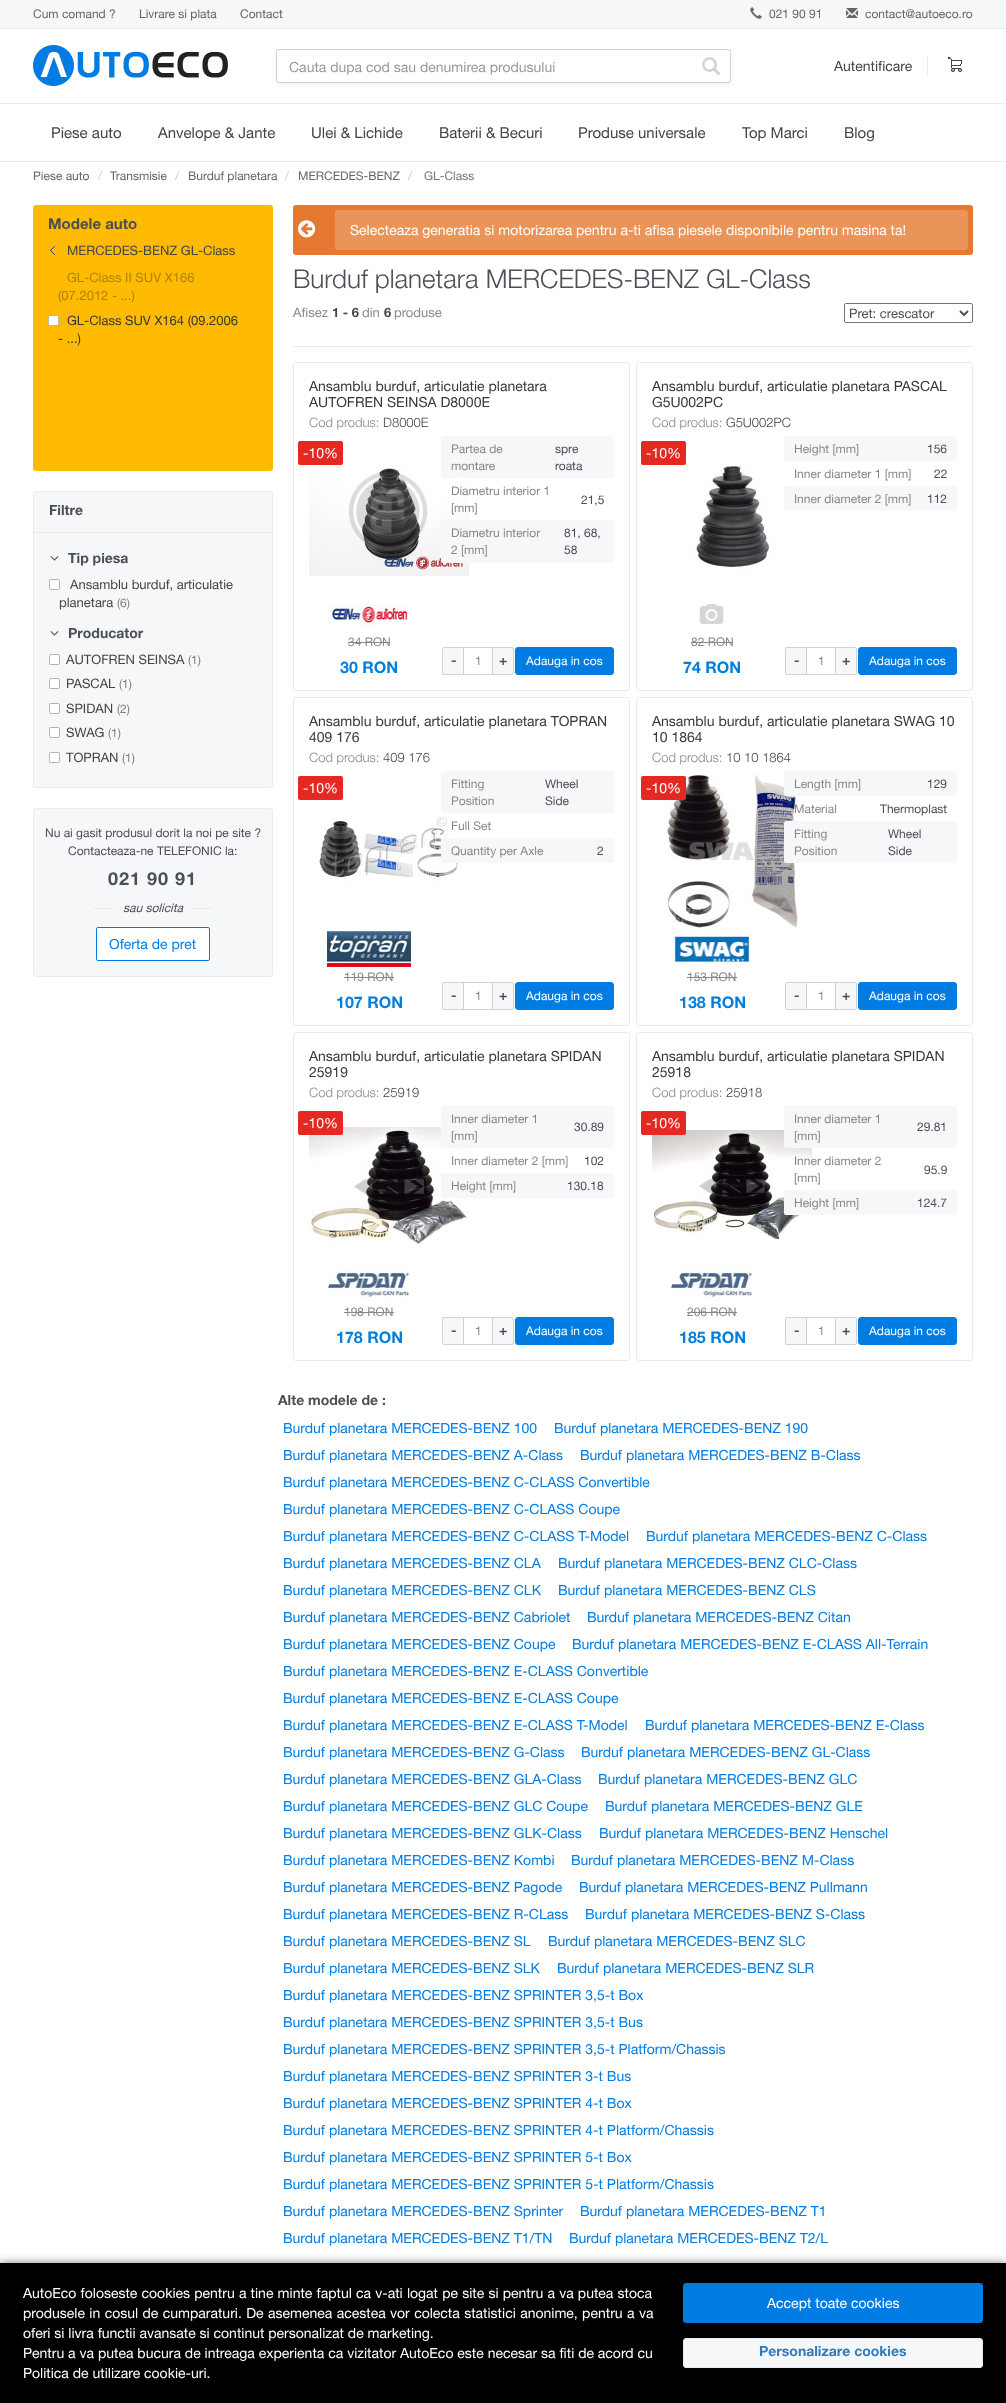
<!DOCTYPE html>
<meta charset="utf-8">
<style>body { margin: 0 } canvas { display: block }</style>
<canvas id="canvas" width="1006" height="2403"></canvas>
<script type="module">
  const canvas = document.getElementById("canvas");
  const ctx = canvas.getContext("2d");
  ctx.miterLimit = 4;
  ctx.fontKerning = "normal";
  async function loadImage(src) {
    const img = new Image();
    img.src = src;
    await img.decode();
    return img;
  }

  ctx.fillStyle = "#ffffff";
  ctx.fillRect(0, 0, 1006, 2403);
  ctx.fillStyle = "#f6f7f9";
  ctx.fillRect(0, 0, 1006, 28);
  ctx.fillStyle = "#e9ebee";
  ctx.fillRect(0, 28, 1006, 1);
  ctx.font = "12px Helvetica Neue";
  ctx.fillStyle = "#666666";
  ctx.fillText("Cum comand ?", 33, 18);
  ctx.fillText("Livrare si plata", 139, 18);
  ctx.fillText("Contact", 240, 18);
  ctx.drawImage(await loadImage("img1.png"), 750, 7, 12, 12);
  ctx.fillText("021 90 91", 769, 18);
  ctx.drawImage(await loadImage("img2.png"), 846, 8, 12, 10);
  ctx.fillText("contact@autoeco.ro", 865, 18);
  ctx.fillStyle = "#e9ebee";
  ctx.fillRect(0, 103, 1006, 1);
  ctx.drawImage(await loadImage("img3.png"), 33, 45, 195, 41);
  ctx.fillStyle = "rgba(0, 0, 0, 0.05)";
  ctx.filter = "blur(2px)";
  ctx.beginPath();
  ctx.roundRect(276, 51, 455, 34, 3);
  ctx.fill();
  ctx.filter = "none";
  ctx.fillStyle = "#ffffff";
  ctx.beginPath();
  ctx.roundRect(276.5, 49.5, 454, 33, 2.5);
  ctx.fill();
  ctx.strokeStyle = "#d0d1d5";
  ctx.stroke();
  ctx.font = "14px Helvetica Neue";
  ctx.fillStyle = "#999999";
  ctx.fillText("Cauta dupa cod sau denumirea produsului", 289, 72);
  ctx.drawImage(await loadImage("img4.png"), 702, 57, 18, 18);
  ctx.fillStyle = "#e9ebee";
  ctx.fillRect(927, 56, 1, 20);
  ctx.fillStyle = "#444444";
  ctx.fillText("Autentificare", 834, 71);
  ctx.drawImage(await loadImage("img5.png"), 948, 57, 14, 15);
  ctx.fillStyle = "#e9ebee";
  ctx.fillRect(0, 161, 1006, 1);
  ctx.font = "15px Helvetica Neue";
  ctx.fillStyle = "#444444";
  ctx.fillText("Piese auto", 51, 138);
  ctx.fillText("Anvelope & Jante", 158, 138);
  ctx.fillText("Ulei & Lichide", 311, 138);
  ctx.fillText("Baterii & Becuri", 439, 138);
  ctx.fillText("Produse universale", 578, 138);
  ctx.fillText("Top Marci", 742, 138);
  ctx.fillText("Blog", 844, 138);
  ctx.font = "12px Helvetica Neue";
  ctx.fillStyle = "#666666";
  ctx.fillText("Piese auto", 33, 180);
  ctx.fillStyle = "#cccccc";
  ctx.fillText("/", 98, 180);
  ctx.fillStyle = "#666666";
  ctx.fillText("Transmisie", 110, 180);
  ctx.fillStyle = "#cccccc";
  ctx.fillText("/", 175, 180);
  ctx.fillStyle = "#666666";
  ctx.fillText("Burduf planetara", 188, 180);
  ctx.fillStyle = "#cccccc";
  ctx.fillText("/", 285, 180);
  ctx.fillStyle = "#666666";
  ctx.fillText("MERCEDES-BENZ", 298, 180);
  ctx.fillStyle = "#cccccc";
  ctx.fillText("/", 408, 180);
  ctx.fillStyle = "#777777";
  ctx.fillText("GL-Class", 424, 180);
  ctx.fillStyle = "#febb02";
  ctx.beginPath();
  ctx.roundRect(33, 205, 240, 266, 3);
  ctx.fill();
  ctx.font = "bold 15px Helvetica Neue";
  ctx.fillStyle = "#4b4f56";
  ctx.fillText("Modele auto", 48, 229);
  ctx.drawImage(await loadImage("img6.png"), 50, 246, 5, 9);
  ctx.font = "13px Helvetica Neue";
  ctx.fillStyle = "#444444";
  ctx.fillText("MERCEDES-BENZ GL-Class", 67, 255);
  ctx.fillStyle = "#b28301";
  ctx.fillText("GL-Class II SUV X166", 67, 282);
  ctx.fillText("(07.2012 - ...)", 58, 300);
  ctx.drawImage(await loadImage("img7.png"), 48, 315, 11, 11);
  ctx.fillStyle = "#383838";
  ctx.fillText("GL-Class SUV X164 (09.2006", 67, 325);
  ctx.fillText("- ...)", 58, 343);
  ctx.fillStyle = "#f6f7f9";
  ctx.beginPath();
  ctx.roundRect(33.5, 491.5, 239, 296, 2.5);
  ctx.fill();
  ctx.strokeStyle = "#e9ebee";
  ctx.stroke();
  ctx.fillStyle = "#e9ebee";
  ctx.fillRect(34, 532, 238, 1);
  ctx.font = "bold 14px Helvetica Neue";
  ctx.fillStyle = "#4b4f56";
  ctx.fillText("Filtre", 49, 515);
  ctx.drawImage(await loadImage("img8.png"), 50, 556, 9, 5);
  ctx.fillText("Tip piesa", 68, 563);
  ctx.drawImage(await loadImage("img9.png"), 49, 579, 11, 11);
  ctx.font = "13px Helvetica Neue";
  ctx.fillStyle = "#444444";
  ctx.fillText("Ansamblu burduf, articulatie", 70, 589);
  ctx.fillText("planetara", 59, 607);
  ctx.font = "12px Helvetica Neue";
  ctx.fillStyle = "#7f7f7f";
  ctx.fillText("(6)", 117, 607);
  ctx.drawImage(await loadImage("img8.png"), 50, 631, 9, 5);
  ctx.font = "bold 14px Helvetica Neue";
  ctx.fillStyle = "#4b4f56";
  ctx.fillText("Producator", 68, 638);
  ctx.drawImage(await loadImage("img9.png"), 49, 654, 11, 11);
  ctx.font = "13px Helvetica Neue";
  ctx.fillStyle = "#444444";
  ctx.fillText("AUTOFREN SEINSA", 66, 664);
  ctx.font = "12px Helvetica Neue";
  ctx.fillStyle = "#7f7f7f";
  ctx.fillText("(1)", 188, 664);
  ctx.drawImage(await loadImage("img9.png"), 49, 678, 11, 11);
  ctx.font = "13px Helvetica Neue";
  ctx.fillStyle = "#444444";
  ctx.fillText("PASCAL", 66, 688);
  ctx.font = "12px Helvetica Neue";
  ctx.fillStyle = "#7f7f7f";
  ctx.fillText("(1)", 119, 688);
  ctx.drawImage(await loadImage("img9.png"), 49, 703, 11, 11);
  ctx.font = "13px Helvetica Neue";
  ctx.fillStyle = "#444444";
  ctx.fillText("SPIDAN", 66, 713);
  ctx.font = "12px Helvetica Neue";
  ctx.fillStyle = "#7f7f7f";
  ctx.fillText("(2)", 117, 713);
  ctx.drawImage(await loadImage("img9.png"), 49, 727, 11, 11);
  ctx.font = "13px Helvetica Neue";
  ctx.fillStyle = "#444444";
  ctx.fillText("SWAG", 66, 737);
  ctx.font = "12px Helvetica Neue";
  ctx.fillStyle = "#7f7f7f";
  ctx.fillText("(1)", 108, 737);
  ctx.drawImage(await loadImage("img9.png"), 49, 752, 11, 11);
  ctx.font = "13px Helvetica Neue";
  ctx.fillStyle = "#444444";
  ctx.fillText("TOPRAN", 66, 762);
  ctx.font = "12px Helvetica Neue";
  ctx.fillStyle = "#7f7f7f";
  ctx.fillText("(1)", 122, 762);
  ctx.fillStyle = "#f6f7f9";
  ctx.beginPath();
  ctx.roundRect(33.5, 808.5, 239, 168, 2.5);
  ctx.fill();
  ctx.stroke();
  ctx.fillStyle = "#4b4f56";
  ctx.fillText("Nu ai gasit produsul dorit la noi pe site ?", 45, 837);
  ctx.fillText("Contacteaza-ne TELEFONIC la:", 68, 855);
  ctx.letterSpacing = "1px";
  ctx.font = "bold 18px Helvetica Neue";
  ctx.fillText("021 90 91", 108, 885);
  ctx.fillStyle = "#e9ebee";
  ctx.fillRect(93, 908, 120, 1);
  ctx.fillStyle = "#f6f7f9";
  ctx.fillRect(113, 908, 80, 1);
  ctx.letterSpacing = "0px";
  ctx.font = "italic 12px Helvetica Neue";
  ctx.fillStyle = "#4b4f56";
  ctx.fillText("sau solicita", 123, 912);
  ctx.fillStyle = "#ffffff";
  ctx.beginPath();
  ctx.roundRect(96.5, 927.5, 113, 33, 1.5);
  ctx.fill();
  ctx.strokeStyle = "#007ce3";
  ctx.stroke();
  ctx.font = "14px Helvetica Neue";
  ctx.fillStyle = "#007ce3";
  ctx.fillText("Oferta de pret", 109, 949);
  ctx.fillStyle = "#e67931";
  ctx.beginPath();
  ctx.roundRect(293, 205, 680, 50, 3);
  ctx.fill();
  ctx.drawImage(await loadImage("img10.png"), 298, 220, 18, 18);
  ctx.fillStyle = "#eb945a";
  ctx.beginPath();
  ctx.roundRect(335, 210, 633, 40, 3);
  ctx.fill();
  ctx.fillStyle = "#ffffff";
  ctx.fillText("Selecteaza generatia si motorizarea pentru a-ti afisa piesele disponibile pentru masina ta!", 350, 235);
  ctx.font = "300 26px Helvetica Neue";
  ctx.fillStyle = "#4b4f56";
  ctx.fillText("Burduf planetara MERCEDES-BENZ GL-Class", 293, 288);
  ctx.font = "13px Helvetica Neue";
  ctx.fillStyle = "#888888";
  ctx.fillText("Afisez", 293, 317);
  ctx.font = "bold 13px Helvetica Neue";
  ctx.fillStyle = "#444444";
  ctx.fillText("1 - 6", 332, 317);
  ctx.font = "13px Helvetica Neue";
  ctx.fillStyle = "#888888";
  ctx.fillText("din", 362, 317);
  ctx.font = "bold 13px Helvetica Neue";
  ctx.fillStyle = "#444444";
  ctx.fillText("6", 384, 317);
  ctx.font = "13px Helvetica Neue";
  ctx.fillStyle = "#888888";
  ctx.fillText("produse", 394, 317);
  ctx.beginPath();
  ctx.roundRect(844.5, 303.5, 128, 19, 1.5);
  ctx.strokeStyle = "#767676";
  ctx.stroke();
  ctx.beginPath();
  ctx.moveTo(960, 311);
  ctx.lineTo(964, 315);
  ctx.lineTo(968, 311);
  ctx.strokeStyle = "#4b4f56";
  ctx.lineWidth = 2;
  ctx.stroke();
  ctx.fillStyle = "#4b4f56";
  ctx.fillText("Pret: crescator", 849, 318);
  ctx.fillStyle = "#e9ebee";
  ctx.fillRect(293, 346, 680, 1);
  ctx.beginPath();
  ctx.roundRect(293.5, 362.5, 336, 328, 2.5);
  ctx.strokeStyle = "#e9ebee";
  ctx.lineWidth = 1;
  ctx.stroke();
  ctx.font = "14px Helvetica Neue";
  ctx.fillStyle = "#383838";
  ctx.fillText("Ansamblu burduf, articulatie planetara", 309, 391);
  ctx.fillText("AUTOFREN SEINSA D8000E", 309, 407);
  ctx.font = "300 13px Helvetica Neue";
  ctx.fillStyle = "#888888";
  ctx.fillText("Cod produs:", 309, 427);
  ctx.fillStyle = "#444444";
  ctx.fillText("D8000E", 383, 427);
  ctx.fillStyle = "#e52822";
  ctx.beginPath();
  ctx.roundRect(298, 441, 45, 24, 2);
  ctx.fill();
  ctx.font = "14px Helvetica Neue";
  ctx.fillStyle = "#ffffff";
  ctx.fillText("-10%", 303, 458);
  ctx.drawImage(await loadImage("img11.png"), 309, 468, 160, 108);
  ctx.drawImage(await loadImage("img12.png"), 327, 604, 81, 24);
  ctx.fillStyle = "#f6f7f9";
  ctx.beginPath();
  ctx.roundRect(441, 436, 173, 42, 2);
  ctx.fill();
  ctx.font = "12px Helvetica Neue";
  ctx.fillStyle = "#888888";
  ctx.fillText("Partea de", 451, 453);
  ctx.fillText("montare", 451, 470);
  ctx.fillStyle = "#4b4f56";
  ctx.fillText("spre", 555, 453);
  ctx.fillText("roata", 555, 470);
  ctx.fillStyle = "#888888";
  ctx.fillText("Diametru interior 1", 451, 495);
  ctx.fillText("[mm]", 451, 512);
  ctx.fillStyle = "#4b4f56";
  ctx.fillText("21,5", 581, 504);
  ctx.fillStyle = "#f6f7f9";
  ctx.beginPath();
  ctx.roundRect(441, 520, 173, 43, 2);
  ctx.fill();
  ctx.fillStyle = "#888888";
  ctx.fillText("Diametru interior", 451, 537);
  ctx.fillText("2 [mm]", 451, 554);
  ctx.fillStyle = "#4b4f56";
  ctx.fillText("81, 68,", 564, 537);
  ctx.fillText("58", 564, 554);
  ctx.fillStyle = "#888888";
  ctx.fillText("34 RON", 348, 646);
  ctx.fillRect(348, 642, 42, 1);
  ctx.font = "bold 16px Helvetica Neue";
  ctx.fillStyle = "#007edc";
  ctx.fillText("30 RON", 340, 673);
  ctx.fillStyle = "#f6f7f9";
  ctx.beginPath();
  ctx.roundRect(442.5, 647.5, 21, 27, [1.5, 0, 0, 1.5]);
  ctx.fill();
  ctx.strokeStyle = "#d0d1d5";
  ctx.stroke();
  ctx.font = "500 14px Helvetica Neue";
  ctx.fillStyle = "#4b4f56";
  ctx.fillText("-", 451, 665);
  ctx.fillStyle = "#f6f7f9";
  ctx.beginPath();
  ctx.roundRect(492.5, 647.5, 21, 27, [0, 1.5, 1.5, 0]);
  ctx.fill();
  ctx.stroke();
  ctx.strokeRect(463.5, 647.5, 29, 27);
  ctx.font = "12px Helvetica Neue";
  ctx.fillStyle = "#888888";
  ctx.fillText("1", 475, 665);
  ctx.font = "500 14px Helvetica Neue";
  ctx.fillStyle = "#4b4f56";
  ctx.fillText("+", 499, 665);
  ctx.fillStyle = "#007ce3";
  ctx.beginPath();
  ctx.roundRect(515.5, 647.5, 98, 27, 2.5);
  ctx.fill();
  ctx.strokeStyle = "#007ce3";
  ctx.stroke();
  ctx.font = "12px Helvetica Neue";
  ctx.fillStyle = "#ffffff";
  ctx.fillText("Adauga in cos", 526, 665);
  ctx.beginPath();
  ctx.roundRect(636.5, 362.5, 336, 328, 2.5);
  ctx.strokeStyle = "#e9ebee";
  ctx.stroke();
  ctx.font = "14px Helvetica Neue";
  ctx.fillStyle = "#383838";
  ctx.fillText("Ansamblu burduf, articulatie planetara PASCAL", 652, 391);
  ctx.fillText("G5U002PC", 652, 407);
  ctx.font = "300 13px Helvetica Neue";
  ctx.fillStyle = "#888888";
  ctx.fillText("Cod produs:", 652, 427);
  ctx.fillStyle = "#444444";
  ctx.fillText("G5U002PC", 726, 427);
  ctx.fillStyle = "#e52822";
  ctx.beginPath();
  ctx.roundRect(641, 441, 45, 24, 2);
  ctx.fill();
  ctx.font = "14px Helvetica Neue";
  ctx.fillStyle = "#ffffff";
  ctx.fillText("-10%", 646, 458);
  ctx.drawImage(await loadImage("img13.png"), 692, 464, 80, 108);
  ctx.drawImage(await loadImage("img14.png"), 699, 604, 25, 20);
  ctx.fillStyle = "#f6f7f9";
  ctx.beginPath();
  ctx.roundRect(784, 436, 173, 25, 2);
  ctx.fill();
  ctx.font = "12px Helvetica Neue";
  ctx.fillStyle = "#888888";
  ctx.fillText("Height [mm]", 794, 453);
  ctx.fillStyle = "#4b4f56";
  ctx.fillText("156", 927, 453);
  ctx.fillStyle = "#888888";
  ctx.fillText("Inner diameter 1 [mm]", 794, 478);
  ctx.fillStyle = "#4b4f56";
  ctx.fillText("22", 934, 478);
  ctx.fillStyle = "#f6f7f9";
  ctx.beginPath();
  ctx.roundRect(784, 486, 173, 25, 2);
  ctx.fill();
  ctx.fillStyle = "#888888";
  ctx.fillText("Inner diameter 2 [mm]", 794, 503);
  ctx.fillStyle = "#4b4f56";
  ctx.fillText("112", 927, 503);
  ctx.fillStyle = "#888888";
  ctx.fillText("82 RON", 691, 646);
  ctx.fillRect(691, 642, 42, 1);
  ctx.font = "bold 16px Helvetica Neue";
  ctx.fillStyle = "#007edc";
  ctx.fillText("74 RON", 683, 673);
  ctx.fillStyle = "#f6f7f9";
  ctx.beginPath();
  ctx.roundRect(785.5, 647.5, 21, 27, [1.5, 0, 0, 1.5]);
  ctx.fill();
  ctx.strokeStyle = "#d0d1d5";
  ctx.stroke();
  ctx.font = "500 14px Helvetica Neue";
  ctx.fillStyle = "#4b4f56";
  ctx.fillText("-", 794, 665);
  ctx.fillStyle = "#f6f7f9";
  ctx.beginPath();
  ctx.roundRect(835.5, 647.5, 21, 27, [0, 1.5, 1.5, 0]);
  ctx.fill();
  ctx.stroke();
  ctx.strokeRect(806.5, 647.5, 29, 27);
  ctx.font = "12px Helvetica Neue";
  ctx.fillStyle = "#888888";
  ctx.fillText("1", 818, 665);
  ctx.font = "500 14px Helvetica Neue";
  ctx.fillStyle = "#4b4f56";
  ctx.fillText("+", 842, 665);
  ctx.fillStyle = "#007ce3";
  ctx.beginPath();
  ctx.roundRect(858.5, 647.5, 98, 27, 2.5);
  ctx.fill();
  ctx.strokeStyle = "#007ce3";
  ctx.stroke();
  ctx.font = "12px Helvetica Neue";
  ctx.fillStyle = "#ffffff";
  ctx.fillText("Adauga in cos", 869, 665);
  ctx.beginPath();
  ctx.roundRect(293.5, 697.5, 336, 328, 2.5);
  ctx.strokeStyle = "#e9ebee";
  ctx.stroke();
  ctx.font = "14px Helvetica Neue";
  ctx.fillStyle = "#383838";
  ctx.fillText("Ansamblu burduf, articulatie planetara TOPRAN", 309, 726);
  ctx.fillText("409 176", 309, 742);
  ctx.font = "300 13px Helvetica Neue";
  ctx.fillStyle = "#888888";
  ctx.fillText("Cod produs:", 309, 762);
  ctx.fillStyle = "#444444";
  ctx.fillText("409 176", 383, 762);
  ctx.fillStyle = "#e52822";
  ctx.beginPath();
  ctx.roundRect(298, 776, 45, 24, 2);
  ctx.fill();
  ctx.font = "14px Helvetica Neue";
  ctx.fillStyle = "#ffffff";
  ctx.fillText("-10%", 303, 793);
  ctx.drawImage(await loadImage("img15.png"), 318, 815, 141, 68);
  ctx.drawImage(await loadImage("img16.png"), 327, 931, 84, 36);
  ctx.fillStyle = "#f6f7f9";
  ctx.beginPath();
  ctx.roundRect(441, 771, 173, 42, 2);
  ctx.fill();
  ctx.font = "12px Helvetica Neue";
  ctx.fillStyle = "#888888";
  ctx.fillText("Fitting", 451, 788);
  ctx.fillText("Position", 451, 805);
  ctx.fillStyle = "#4b4f56";
  ctx.fillText("Wheel", 545, 788);
  ctx.fillText("Side", 545, 805);
  ctx.fillStyle = "#888888";
  ctx.fillText("Full Set", 451, 830);
  ctx.fillStyle = "#f6f7f9";
  ctx.beginPath();
  ctx.roundRect(441, 838, 173, 25, 2);
  ctx.fill();
  ctx.fillStyle = "#888888";
  ctx.fillText("Quantity per Axle", 451, 855);
  ctx.fillStyle = "#4b4f56";
  ctx.fillText("2", 597, 855);
  ctx.fillStyle = "#888888";
  ctx.fillText("119 RON", 344, 981);
  ctx.fillRect(344, 977, 50, 1);
  ctx.font = "bold 16px Helvetica Neue";
  ctx.fillStyle = "#007edc";
  ctx.fillText("107 RON", 336, 1008);
  ctx.fillStyle = "#f6f7f9";
  ctx.beginPath();
  ctx.roundRect(442.5, 982.5, 21, 27, [1.5, 0, 0, 1.5]);
  ctx.fill();
  ctx.strokeStyle = "#d0d1d5";
  ctx.stroke();
  ctx.font = "500 14px Helvetica Neue";
  ctx.fillStyle = "#4b4f56";
  ctx.fillText("-", 451, 1000);
  ctx.fillStyle = "#f6f7f9";
  ctx.beginPath();
  ctx.roundRect(492.5, 982.5, 21, 27, [0, 1.5, 1.5, 0]);
  ctx.fill();
  ctx.stroke();
  ctx.strokeRect(463.5, 982.5, 29, 27);
  ctx.font = "12px Helvetica Neue";
  ctx.fillStyle = "#888888";
  ctx.fillText("1", 475, 1000);
  ctx.font = "500 14px Helvetica Neue";
  ctx.fillStyle = "#4b4f56";
  ctx.fillText("+", 499, 1000);
  ctx.fillStyle = "#007ce3";
  ctx.beginPath();
  ctx.roundRect(515.5, 982.5, 98, 27, 2.5);
  ctx.fill();
  ctx.strokeStyle = "#007ce3";
  ctx.stroke();
  ctx.font = "12px Helvetica Neue";
  ctx.fillStyle = "#ffffff";
  ctx.fillText("Adauga in cos", 526, 1000);
  ctx.beginPath();
  ctx.roundRect(636.5, 697.5, 336, 328, 2.5);
  ctx.strokeStyle = "#e9ebee";
  ctx.stroke();
  ctx.font = "14px Helvetica Neue";
  ctx.fillStyle = "#383838";
  ctx.fillText("Ansamblu burduf, articulatie planetara SWAG 10", 652, 726);
  ctx.fillText("10 1864", 652, 742);
  ctx.font = "300 13px Helvetica Neue";
  ctx.fillStyle = "#888888";
  ctx.fillText("Cod produs:", 652, 762);
  ctx.fillStyle = "#444444";
  ctx.fillText("10 10 1864", 726, 762);
  ctx.drawImage(await loadImage("img17.png"), 667, 771, 132, 160);
  ctx.fillStyle = "#e52822";
  ctx.beginPath();
  ctx.roundRect(641, 776, 45, 24, 2);
  ctx.fill();
  ctx.font = "14px Helvetica Neue";
  ctx.fillStyle = "#ffffff";
  ctx.fillText("-10%", 646, 793);
  ctx.drawImage(await loadImage("img18.png"), 670, 931, 80, 32);
  ctx.fillStyle = "#f6f7f9";
  ctx.beginPath();
  ctx.roundRect(784, 771, 173, 25, 2);
  ctx.fill();
  ctx.font = "12px Helvetica Neue";
  ctx.fillStyle = "#888888";
  ctx.fillText("Length [mm]", 794, 788);
  ctx.fillStyle = "#4b4f56";
  ctx.fillText("129", 927, 788);
  ctx.fillStyle = "#888888";
  ctx.fillText("Material", 794, 813);
  ctx.fillStyle = "#4b4f56";
  ctx.fillText("Thermoplast", 880, 813);
  ctx.fillStyle = "#f6f7f9";
  ctx.beginPath();
  ctx.roundRect(784, 821, 173, 42, 2);
  ctx.fill();
  ctx.fillStyle = "#888888";
  ctx.fillText("Fitting", 794, 838);
  ctx.fillText("Position", 794, 855);
  ctx.fillStyle = "#4b4f56";
  ctx.fillText("Wheel", 888, 838);
  ctx.fillText("Side", 888, 855);
  ctx.fillStyle = "#888888";
  ctx.fillText("153 RON", 687, 981);
  ctx.fillRect(687, 977, 50, 1);
  ctx.font = "bold 16px Helvetica Neue";
  ctx.fillStyle = "#007edc";
  ctx.fillText("138 RON", 679, 1008);
  ctx.fillStyle = "#f6f7f9";
  ctx.beginPath();
  ctx.roundRect(785.5, 982.5, 21, 27, [1.5, 0, 0, 1.5]);
  ctx.fill();
  ctx.strokeStyle = "#d0d1d5";
  ctx.stroke();
  ctx.font = "500 14px Helvetica Neue";
  ctx.fillStyle = "#4b4f56";
  ctx.fillText("-", 794, 1000);
  ctx.fillStyle = "#f6f7f9";
  ctx.beginPath();
  ctx.roundRect(835.5, 982.5, 21, 27, [0, 1.5, 1.5, 0]);
  ctx.fill();
  ctx.stroke();
  ctx.strokeRect(806.5, 982.5, 29, 27);
  ctx.font = "12px Helvetica Neue";
  ctx.fillStyle = "#888888";
  ctx.fillText("1", 818, 1000);
  ctx.font = "500 14px Helvetica Neue";
  ctx.fillStyle = "#4b4f56";
  ctx.fillText("+", 842, 1000);
  ctx.fillStyle = "#007ce3";
  ctx.beginPath();
  ctx.roundRect(858.5, 982.5, 98, 27, 2.5);
  ctx.fill();
  ctx.strokeStyle = "#007ce3";
  ctx.stroke();
  ctx.font = "12px Helvetica Neue";
  ctx.fillStyle = "#ffffff";
  ctx.fillText("Adauga in cos", 869, 1000);
  ctx.beginPath();
  ctx.roundRect(293.5, 1032.5, 336, 328, 2.5);
  ctx.strokeStyle = "#e9ebee";
  ctx.stroke();
  ctx.font = "14px Helvetica Neue";
  ctx.fillStyle = "#383838";
  ctx.fillText("Ansamblu burduf, articulatie planetara SPIDAN", 309, 1061);
  ctx.fillText("25919", 309, 1077);
  ctx.font = "300 13px Helvetica Neue";
  ctx.fillStyle = "#888888";
  ctx.fillText("Cod produs:", 309, 1097);
  ctx.fillStyle = "#444444";
  ctx.fillText("25919", 383, 1097);
  ctx.drawImage(await loadImage("img19.png"), 309, 1127, 160, 123);
  ctx.fillStyle = "#e52822";
  ctx.beginPath();
  ctx.roundRect(298, 1111, 45, 24, 2);
  ctx.fill();
  ctx.font = "14px Helvetica Neue";
  ctx.fillStyle = "#ffffff";
  ctx.fillText("-10%", 303, 1128);
  ctx.drawImage(await loadImage("img20.png"), 327, 1266, 84, 32);
  ctx.fillStyle = "#f6f7f9";
  ctx.beginPath();
  ctx.roundRect(441, 1106, 173, 42, 2);
  ctx.fill();
  ctx.font = "12px Helvetica Neue";
  ctx.fillStyle = "#888888";
  ctx.fillText("Inner diameter 1", 451, 1123);
  ctx.fillText("[mm]", 451, 1140);
  ctx.fillStyle = "#4b4f56";
  ctx.fillText("30.89", 574, 1131);
  ctx.fillStyle = "#888888";
  ctx.fillText("Inner diameter 2 [mm]", 451, 1165);
  ctx.fillStyle = "#4b4f56";
  ctx.fillText("102", 584, 1165);
  ctx.fillStyle = "#f6f7f9";
  ctx.beginPath();
  ctx.roundRect(441, 1173, 173, 25, 2);
  ctx.fill();
  ctx.fillStyle = "#888888";
  ctx.fillText("Height [mm]", 451, 1190);
  ctx.fillStyle = "#4b4f56";
  ctx.fillText("130.18", 567, 1190);
  ctx.fillStyle = "#888888";
  ctx.fillText("198 RON", 344, 1316);
  ctx.fillRect(344, 1312, 50, 1);
  ctx.font = "bold 16px Helvetica Neue";
  ctx.fillStyle = "#007edc";
  ctx.fillText("178 RON", 336, 1343);
  ctx.fillStyle = "#f6f7f9";
  ctx.beginPath();
  ctx.roundRect(442.5, 1317.5, 21, 27, [1.5, 0, 0, 1.5]);
  ctx.fill();
  ctx.strokeStyle = "#d0d1d5";
  ctx.stroke();
  ctx.font = "500 14px Helvetica Neue";
  ctx.fillStyle = "#4b4f56";
  ctx.fillText("-", 451, 1335);
  ctx.fillStyle = "#f6f7f9";
  ctx.beginPath();
  ctx.roundRect(492.5, 1317.5, 21, 27, [0, 1.5, 1.5, 0]);
  ctx.fill();
  ctx.stroke();
  ctx.strokeRect(463.5, 1317.5, 29, 27);
  ctx.font = "12px Helvetica Neue";
  ctx.fillStyle = "#888888";
  ctx.fillText("1", 475, 1335);
  ctx.font = "500 14px Helvetica Neue";
  ctx.fillStyle = "#4b4f56";
  ctx.fillText("+", 499, 1335);
  ctx.fillStyle = "#007ce3";
  ctx.beginPath();
  ctx.roundRect(515.5, 1317.5, 98, 27, 2.5);
  ctx.fill();
  ctx.strokeStyle = "#007ce3";
  ctx.stroke();
  ctx.font = "12px Helvetica Neue";
  ctx.fillStyle = "#ffffff";
  ctx.fillText("Adauga in cos", 526, 1335);
  ctx.beginPath();
  ctx.roundRect(636.5, 1032.5, 336, 328, 2.5);
  ctx.strokeStyle = "#e9ebee";
  ctx.stroke();
  ctx.font = "14px Helvetica Neue";
  ctx.fillStyle = "#383838";
  ctx.fillText("Ansamblu burduf, articulatie planetara SPIDAN", 652, 1061);
  ctx.fillText("25918", 652, 1077);
  ctx.font = "300 13px Helvetica Neue";
  ctx.fillStyle = "#888888";
  ctx.fillText("Cod produs:", 652, 1097);
  ctx.fillStyle = "#444444";
  ctx.fillText("25918", 726, 1097);
  ctx.drawImage(await loadImage("img21.png"), 652, 1130, 160, 112);
  ctx.fillStyle = "#e52822";
  ctx.beginPath();
  ctx.roundRect(641, 1111, 45, 24, 2);
  ctx.fill();
  ctx.font = "14px Helvetica Neue";
  ctx.fillStyle = "#ffffff";
  ctx.fillText("-10%", 646, 1128);
  ctx.drawImage(await loadImage("img20.png"), 670, 1266, 84, 32);
  ctx.fillStyle = "#f6f7f9";
  ctx.beginPath();
  ctx.roundRect(784, 1106, 173, 42, 2);
  ctx.fill();
  ctx.font = "12px Helvetica Neue";
  ctx.fillStyle = "#888888";
  ctx.fillText("Inner diameter 1", 794, 1123);
  ctx.fillText("[mm]", 794, 1140);
  ctx.fillStyle = "#4b4f56";
  ctx.fillText("29.81", 917, 1131);
  ctx.fillStyle = "#888888";
  ctx.fillText("Inner diameter 2", 794, 1165);
  ctx.fillText("[mm]", 794, 1182);
  ctx.fillStyle = "#4b4f56";
  ctx.fillText("95.9", 924, 1174);
  ctx.fillStyle = "#f6f7f9";
  ctx.beginPath();
  ctx.roundRect(784, 1190, 173, 25, 2);
  ctx.fill();
  ctx.fillStyle = "#888888";
  ctx.fillText("Height [mm]", 794, 1207);
  ctx.fillStyle = "#4b4f56";
  ctx.fillText("124.7", 917, 1207);
  ctx.fillStyle = "#888888";
  ctx.fillText("206 RON", 687, 1316);
  ctx.fillRect(687, 1312, 50, 1);
  ctx.font = "bold 16px Helvetica Neue";
  ctx.fillStyle = "#007edc";
  ctx.fillText("185 RON", 679, 1343);
  ctx.fillStyle = "#f6f7f9";
  ctx.beginPath();
  ctx.roundRect(785.5, 1317.5, 21, 27, [1.5, 0, 0, 1.5]);
  ctx.fill();
  ctx.strokeStyle = "#d0d1d5";
  ctx.stroke();
  ctx.font = "500 14px Helvetica Neue";
  ctx.fillStyle = "#4b4f56";
  ctx.fillText("-", 794, 1335);
  ctx.fillStyle = "#f6f7f9";
  ctx.beginPath();
  ctx.roundRect(835.5, 1317.5, 21, 27, [0, 1.5, 1.5, 0]);
  ctx.fill();
  ctx.stroke();
  ctx.strokeRect(806.5, 1317.5, 29, 27);
  ctx.font = "12px Helvetica Neue";
  ctx.fillStyle = "#888888";
  ctx.fillText("1", 818, 1335);
  ctx.font = "500 14px Helvetica Neue";
  ctx.fillStyle = "#4b4f56";
  ctx.fillText("+", 842, 1335);
  ctx.fillStyle = "#007ce3";
  ctx.beginPath();
  ctx.roundRect(858.5, 1317.5, 98, 27, 2.5);
  ctx.fill();
  ctx.strokeStyle = "#007ce3";
  ctx.stroke();
  ctx.font = "12px Helvetica Neue";
  ctx.fillStyle = "#ffffff";
  ctx.fillText("Adauga in cos", 869, 1335);
  ctx.font = "bold 14px Helvetica Neue";
  ctx.fillStyle = "#4b4f56";
  ctx.fillText("Alte modele de :", 278, 1405);
  ctx.font = "14px Helvetica Neue";
  ctx.fillStyle = "#007ce3";
  ctx.fillText("Burduf planetara MERCEDES-BENZ 100", 283, 1433);
  ctx.fillText("Burduf planetara MERCEDES-BENZ 190", 554, 1433);
  ctx.fillText("Burduf planetara MERCEDES-BENZ A-Class", 283, 1460);
  ctx.fillText("Burduf planetara MERCEDES-BENZ B-Class", 580, 1460);
  ctx.fillText("Burduf planetara MERCEDES-BENZ C-CLASS Convertible", 283, 1487);
  ctx.fillText("Burduf planetara MERCEDES-BENZ C-CLASS Coupe", 283, 1514);
  ctx.fillText("Burduf planetara MERCEDES-BENZ C-CLASS T-Model", 283, 1541);
  ctx.fillText("Burduf planetara MERCEDES-BENZ C-Class", 646, 1541);
  ctx.fillText("Burduf planetara MERCEDES-BENZ CLA", 283, 1568);
  ctx.fillText("Burduf planetara MERCEDES-BENZ CLC-Class", 558, 1568);
  ctx.fillText("Burduf planetara MERCEDES-BENZ CLK", 283, 1595);
  ctx.fillText("Burduf planetara MERCEDES-BENZ CLS", 558, 1595);
  ctx.fillText("Burduf planetara MERCEDES-BENZ Cabriolet", 283, 1622);
  ctx.fillText("Burduf planetara MERCEDES-BENZ Citan", 587, 1622);
  ctx.fillText("Burduf planetara MERCEDES-BENZ Coupe", 283, 1649);
  ctx.fillText("Burduf planetara MERCEDES-BENZ E-CLASS All-Terrain", 572, 1649);
  ctx.fillText("Burduf planetara MERCEDES-BENZ E-CLASS Convertible", 283, 1676);
  ctx.fillText("Burduf planetara MERCEDES-BENZ E-CLASS Coupe", 283, 1703);
  ctx.fillText("Burduf planetara MERCEDES-BENZ E-CLASS T-Model", 283, 1730);
  ctx.fillText("Burduf planetara MERCEDES-BENZ E-Class", 645, 1730);
  ctx.fillText("Burduf planetara MERCEDES-BENZ G-Class", 283, 1757);
  ctx.fillText("Burduf planetara MERCEDES-BENZ GL-Class", 581, 1757);
  ctx.fillText("Burduf planetara MERCEDES-BENZ GLA-Class", 283, 1784);
  ctx.fillText("Burduf planetara MERCEDES-BENZ GLC", 598, 1784);
  ctx.fillText("Burduf planetara MERCEDES-BENZ GLC Coupe", 283, 1811);
  ctx.fillText("Burduf planetara MERCEDES-BENZ GLE", 605, 1811);
  ctx.fillText("Burduf planetara MERCEDES-BENZ GLK-Class", 283, 1838);
  ctx.fillText("Burduf planetara MERCEDES-BENZ Henschel", 599, 1838);
  ctx.fillText("Burduf planetara MERCEDES-BENZ Kombi", 283, 1865);
  ctx.fillText("Burduf planetara MERCEDES-BENZ M-Class", 571, 1865);
  ctx.fillText("Burduf planetara MERCEDES-BENZ Pagode", 283, 1892);
  ctx.fillText("Burduf planetara MERCEDES-BENZ Pullmann", 579, 1892);
  ctx.fillText("Burduf planetara MERCEDES-BENZ R-CLass", 283, 1919);
  ctx.fillText("Burduf planetara MERCEDES-BENZ S-Class", 585, 1919);
  ctx.fillText("Burduf planetara MERCEDES-BENZ SL", 283, 1946);
  ctx.fillText("Burduf planetara MERCEDES-BENZ SLC", 548, 1946);
  ctx.fillText("Burduf planetara MERCEDES-BENZ SLK", 283, 1973);
  ctx.fillText("Burduf planetara MERCEDES-BENZ SLR", 557, 1973);
  ctx.fillText("Burduf planetara MERCEDES-BENZ SPRINTER 3,5-t Box", 283, 2000);
  ctx.fillText("Burduf planetara MERCEDES-BENZ SPRINTER 3,5-t Bus", 283, 2027);
  ctx.fillText("Burduf planetara MERCEDES-BENZ SPRINTER 3,5-t Platform/Chassis", 283, 2054);
  ctx.fillText("Burduf planetara MERCEDES-BENZ SPRINTER 3-t Bus", 283, 2081);
  ctx.fillText("Burduf planetara MERCEDES-BENZ SPRINTER 4-t Box", 283, 2108);
  ctx.fillText("Burduf planetara MERCEDES-BENZ SPRINTER 4-t Platform/Chassis", 283, 2135);
  ctx.fillText("Burduf planetara MERCEDES-BENZ SPRINTER 5-t Box", 283, 2162);
  ctx.fillText("Burduf planetara MERCEDES-BENZ SPRINTER 5-t Platform/Chassis", 283, 2189);
  ctx.fillText("Burduf planetara MERCEDES-BENZ Sprinter", 283, 2216);
  ctx.fillText("Burduf planetara MERCEDES-BENZ T1", 580, 2216);
  ctx.fillText("Burduf planetara MERCEDES-BENZ T1/TN", 283, 2243);
  ctx.fillText("Burduf planetara MERCEDES-BENZ T2/L", 569, 2243);
  ctx.fillStyle = "rgba(0, 0, 0, 0.5)";
  ctx.filter = "blur(5px)";
  ctx.beginPath();
  ctx.rect(0, 2263, 1006, 140);
  ctx.fill();
  ctx.filter = "none";
  ctx.fillStyle = "#000000";
  ctx.fillRect(0, 2263, 1006, 140);
  ctx.wordSpacing = "0.3px";
  ctx.fillStyle = "#ffffff";
  ctx.fillText("AutoEco foloseste cookies pentru a tine minte faptul ca v-ati logat pe site si pentru a va putea stoca", 23, 2298);
  ctx.wordSpacing = "0.5px";
  ctx.fillText("produsele in cosul de cumparaturi. De asemenea acestea vor colecta statistici anonime, pentru a va", 23, 2318);
  ctx.wordSpacing = "0px";
  ctx.fillText("oferi si livra functii avansate si continut personalizat de marketing.", 23, 2338);
  ctx.fillText("Pentru a va putea bucura de intreaga experienta ca vizitator AutoEco este necesar sa fiti de acord cu", 23, 2358);
  ctx.fillText("Politica de utilizare cookie-uri.", 23, 2378);
  ctx.fillStyle = "#007ce3";
  ctx.beginPath();
  ctx.roundRect(683.5, 2283.5, 299, 39, 2.5);
  ctx.fill();
  ctx.stroke();
  ctx.fillStyle = "#ffffff";
  ctx.fillText("Accept toate cookies", 767, 2308);
  ctx.fillStyle = "#f6f7f9";
  ctx.beginPath();
  ctx.roundRect(683.5, 2338.5, 299, 29, 2.5);
  ctx.fill();
  ctx.strokeStyle = "#e9ebee";
  ctx.stroke();
  ctx.font = "bold 14px Helvetica Neue";
  ctx.fillStyle = "#337ab7";
  ctx.fillText("Personalizare cookies", 759, 2356);
</script>
